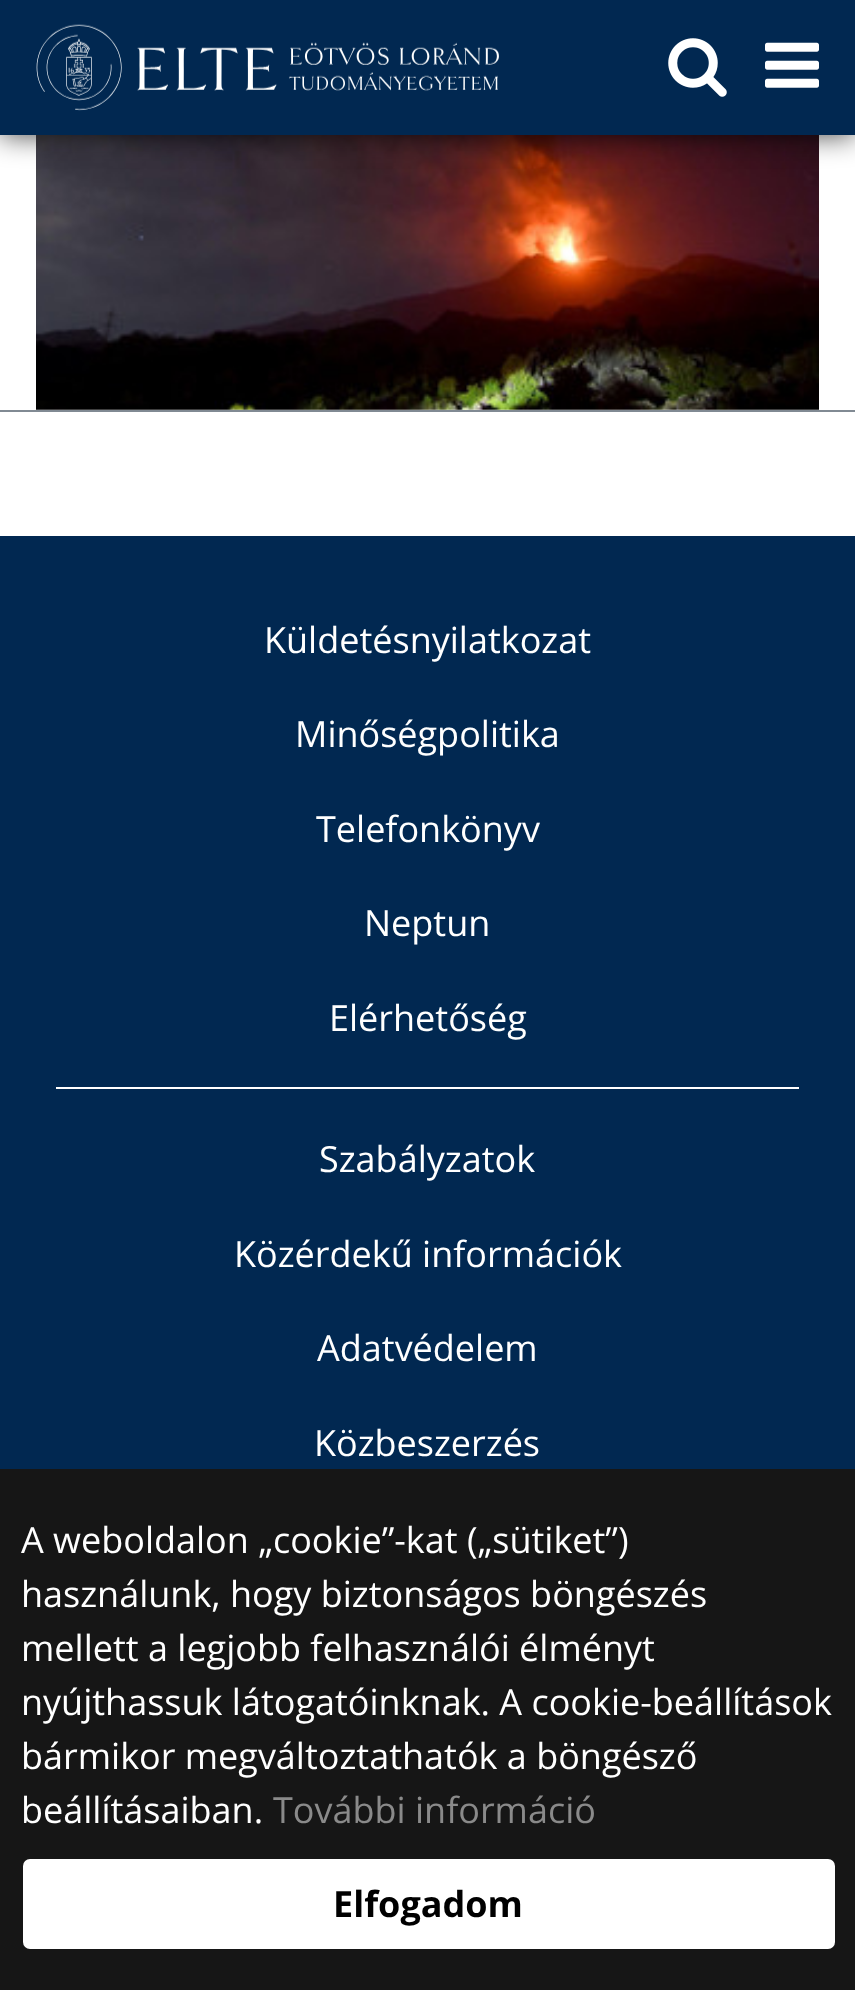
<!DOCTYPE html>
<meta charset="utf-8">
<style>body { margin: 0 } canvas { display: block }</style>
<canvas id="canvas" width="855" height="1990"></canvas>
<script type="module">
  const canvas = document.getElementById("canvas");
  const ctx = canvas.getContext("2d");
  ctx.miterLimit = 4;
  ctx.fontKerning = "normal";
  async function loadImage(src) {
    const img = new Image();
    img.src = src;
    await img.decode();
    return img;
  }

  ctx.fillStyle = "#ffffff";
  ctx.fillRect(0, 0, 855, 1990);
  ctx.drawImage(await loadImage("img4.png"), 36, 135, 783, 275);
  ctx.fillStyle = "rgba(0, 0, 0, 0.75)";
  ctx.filter = "blur(14.5px)";
  ctx.beginPath();
  ctx.rect(0, 0, 855, 135);
  ctx.fill();
  ctx.filter = "none";
  ctx.fillStyle = "#012851";
  ctx.fillRect(0, 0, 855, 135);
  ctx.drawImage(await loadImage("img1.png"), 36, 24, 463, 87);
  ctx.drawImage(await loadImage("img2.png"), 668, 38, 59, 59);
  ctx.drawImage(await loadImage("img3.png"), 765, 42, 54, 46);
  ctx.fillStyle = "#818a93";
  ctx.fillRect(0, 410, 855, 2);
  ctx.fillStyle = "#012851";
  ctx.fillRect(0, 536, 855, 933);
  ctx.fillStyle = "#ffffff";
  ctx.fillRect(56, 1087, 743, 2);
  ctx.font = "36px Open Sans";
  ctx.fillText("Küldetésnyilatkozat", 264, 653);
  ctx.fillText("Minőségpolitika", 295, 747);
  ctx.fillText("Telefonkönyv", 316, 842);
  ctx.fillText("Neptun", 364, 936);
  ctx.fillText("Elérhetőség", 329, 1031);
  ctx.fillText("Szabályzatok", 319, 1172);
  ctx.fillText("Közérdekű információk", 234, 1267);
  ctx.fillText("Adatvédelem", 317, 1361);
  ctx.fillText("Közbeszerzés", 314, 1456);
  ctx.fillStyle = "#161616";
  ctx.fillRect(0, 1469, 855, 521);
  ctx.fillStyle = "#ffffff";
  ctx.fillText("A weboldalon „cookie”-kat („sütiket”)", 21, 1553);
  ctx.fillText("használunk, hogy biztonságos böngészés", 21, 1607);
  ctx.fillText("mellett a legjobb felhasználói élményt", 21, 1661);
  ctx.fillText("nyújthassuk látogatóinknak. A cookie-beállítások", 21, 1715);
  ctx.fillText("bármikor megváltoztathatók a böngésző", 21, 1769);
  ctx.fillText("beállításaiban.", 21, 1823);
  ctx.fillStyle = "#8a8a8a";
  ctx.fillText("További információ", 273, 1823);
  ctx.fillStyle = "#ffffff";
  ctx.beginPath();
  ctx.roundRect(23, 1859, 812, 90, 7);
  ctx.fill();
  ctx.font = "bold 36px Open Sans";
  ctx.fillStyle = "#000000";
  ctx.fillText("Elfogadom", 333, 1917);
</script>
